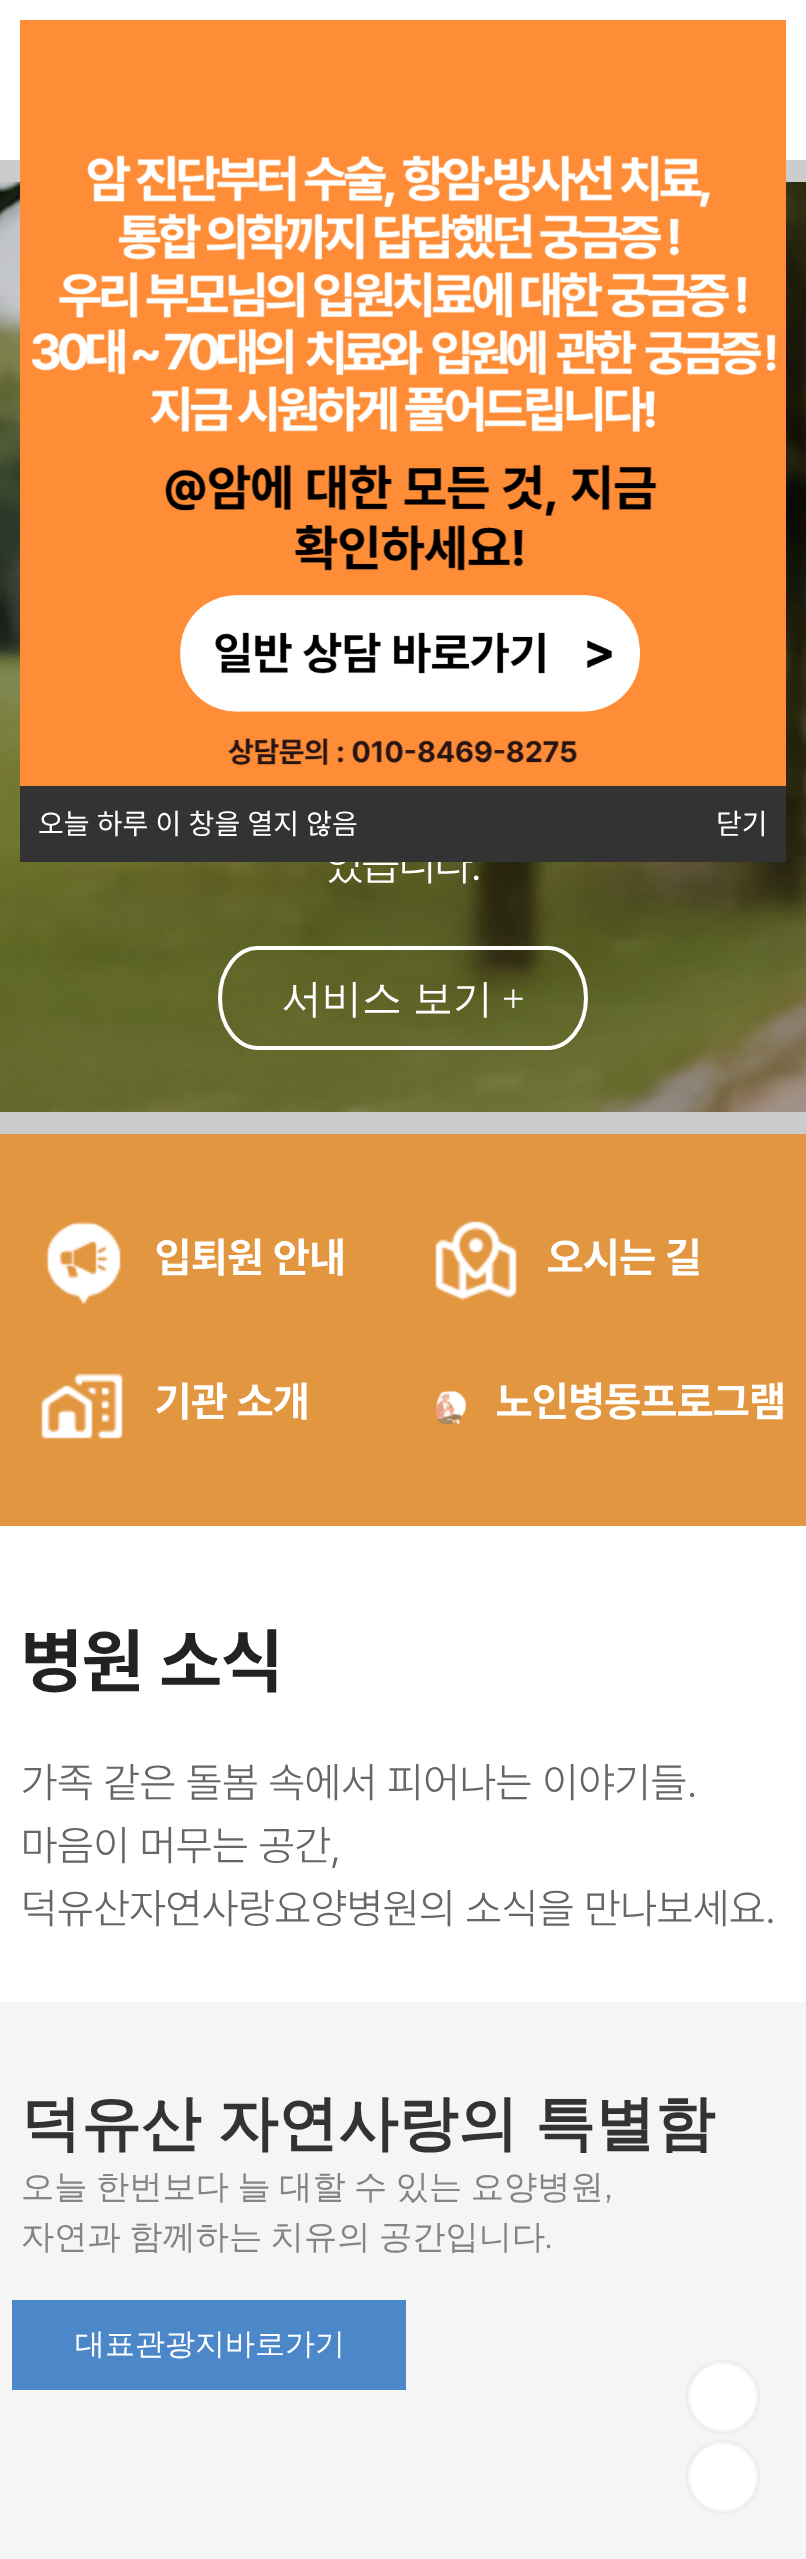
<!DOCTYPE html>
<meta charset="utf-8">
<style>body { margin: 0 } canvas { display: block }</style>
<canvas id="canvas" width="806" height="2559"></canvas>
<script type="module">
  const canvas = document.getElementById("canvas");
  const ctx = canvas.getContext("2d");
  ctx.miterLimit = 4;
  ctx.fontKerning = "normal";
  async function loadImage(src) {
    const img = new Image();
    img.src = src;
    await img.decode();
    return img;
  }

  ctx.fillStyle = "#ffffff";
  ctx.fillRect(0, 0, 806, 2559);
  ctx.drawImage(await loadImage("img2.png"), 0, 160, 806, 974);
  ctx.drawImage(await loadImage("img1.png"), 20, 20, 766, 766);
  ctx.letterSpacing = "-2px";
  ctx.font = "300 44.5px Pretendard";
  ctx.fillText("있습니다.", 325, 880);
  ctx.fillStyle = "#333333";
  ctx.fillRect(20, 786, 766, 76);
  ctx.letterSpacing = "0px";
  ctx.wordSpacing = "1px";
  ctx.font = "28px Noto Sans KR";
  ctx.fillStyle = "#ffffff";
  ctx.fillText("오늘 하루 이 창을 열지 않음", 38, 834);
  ctx.wordSpacing = "0px";
  ctx.fillText("닫기", 716, 834);
  ctx.beginPath();
  ctx.moveTo(258, 948);
  ctx.lineTo(548, 948);
  ctx.bezierCurveTo(569, 948, 586, 970.5, 586, 998);
  ctx.bezierCurveTo(586, 1025.5, 569, 1048, 548, 1048);
  ctx.lineTo(258, 1048);
  ctx.bezierCurveTo(237, 1048, 220, 1025.5, 220, 998);
  ctx.bezierCurveTo(220, 970.5, 237, 948, 258, 948);
  ctx.closePath();
  ctx.strokeStyle = "#ffffff";
  ctx.lineWidth = 4;
  ctx.stroke();
  ctx.wordSpacing = "-1px";
  ctx.font = "500 40px WenQuanYi Zen Hei";
  ctx.fillText("서비스 보기", 282, 1012);
  ctx.wordSpacing = "0px";
  ctx.font = "40px Liberation Serif";
  ctx.fillText("+", 502, 1012);
  ctx.fillStyle = "#e39640";
  ctx.fillRect(0, 1134, 806, 392);
  ctx.drawImage(await loadImage("img3.png"), 45, 1221, 76, 84);
  ctx.font = "bold 41.9px Pretendard";
  ctx.fillStyle = "#ffffff";
  ctx.fillText("입퇴원 안내", 155, 1272);
  ctx.drawImage(await loadImage("img4.png"), 435, 1221, 82, 80);
  ctx.fillText("오시는 길", 547, 1272);
  ctx.drawImage(await loadImage("img5.png"), 41, 1373, 82, 66);
  ctx.fillText("기관 소개", 155, 1416);
  ctx.drawImage(await loadImage("img6.png"), 435, 1390, 31, 34);
  ctx.fillText("노인병동프로그램", 496, 1416);
  ctx.font = "bold 71px Pretendard";
  ctx.fillStyle = "#222222";
  ctx.fillText("병원 소식", 21, 1686);
  ctx.font = "300 41.9px Pretendard";
  ctx.fillStyle = "#666666";
  ctx.fillText("가족 같은 돌봄 속에서 피어나는 이야기들.", 21, 1797);
  ctx.fillText("마음이 머무는 공간,", 21, 1860);
  ctx.fillText("덕유산자연사랑요양병원의 소식을 만나보세요.", 21, 1923);
  ctx.fillStyle = "#f5f5f5";
  ctx.fillRect(0, 2002, 806, 557);
  ctx.wordSpacing = "-1px";
  ctx.font = "bold 60px WenQuanYi Zen Hei";
  ctx.fillStyle = "#333333";
  ctx.fillText("덕유산 자연사랑의 특별함", 21, 2144);
  ctx.wordSpacing = "-1.5px";
  ctx.font = "500 33.25px WenQuanYi Zen Hei";
  ctx.fillStyle = "#848484";
  ctx.fillText("오늘 한번보다 늘 대할 수 있는 요양병원", 21, 2198);
  ctx.wordSpacing = "0px";
  ctx.font = "33.25px Montserrat";
  ctx.fillText(",", 605, 2198);
  ctx.wordSpacing = "-1.5px";
  ctx.font = "500 33.25px WenQuanYi Zen Hei";
  ctx.fillText("자연과 함께하는 치유의 공간입니다", 21, 2248);
  ctx.wordSpacing = "0px";
  ctx.font = "33.25px Montserrat";
  ctx.fillText(".", 545, 2248);
  ctx.fillStyle = "#4c87ca";
  ctx.fillRect(12, 2300, 394, 90);
  ctx.font = "500 30px WenQuanYi Zen Hei";
  ctx.fillStyle = "#ffffff";
  ctx.fillText("대표관광지바로가기", 75, 2354);
  ctx.fillStyle = "rgba(0, 0, 0, 0.1)";
  ctx.filter = "blur(2px)";
  ctx.beginPath();
  ctx.roundRect(688, 2362, 70, 70, 35);
  ctx.fill();
  ctx.filter = "none";
  ctx.fillStyle = "#ffffff";
  ctx.beginPath();
  ctx.moveTo(758, 2397);
  ctx.bezierCurveTo(758, 2416, 742, 2432, 723, 2432);
  ctx.bezierCurveTo(704, 2432, 688, 2416, 688, 2397);
  ctx.bezierCurveTo(688, 2378, 704, 2362, 723, 2362);
  ctx.bezierCurveTo(742, 2362, 758, 2378, 758, 2397);
  ctx.closePath();
  ctx.fill();
  ctx.beginPath();
  ctx.moveTo(757, 2397);
  ctx.bezierCurveTo(757, 2416, 742, 2431, 723, 2431);
  ctx.bezierCurveTo(704, 2431, 689, 2416, 689, 2397);
  ctx.bezierCurveTo(689, 2378, 704, 2363, 723, 2363);
  ctx.bezierCurveTo(742, 2363, 757, 2378, 757, 2397);
  ctx.closePath();
  ctx.strokeStyle = "#f2f4f6";
  ctx.lineWidth = 2;
  ctx.stroke();
  ctx.fillStyle = "rgba(0, 0, 0, 0.1)";
  ctx.filter = "blur(2px)";
  ctx.beginPath();
  ctx.roundRect(688, 2442, 70, 70, 35);
  ctx.fill();
  ctx.filter = "none";
  ctx.fillStyle = "#ffffff";
  ctx.beginPath();
  ctx.moveTo(688, 2477);
  ctx.bezierCurveTo(688, 2458, 704, 2442, 723, 2442);
  ctx.bezierCurveTo(742, 2442, 758, 2458, 758, 2477);
  ctx.bezierCurveTo(758, 2496, 742, 2512, 723, 2512);
  ctx.bezierCurveTo(704, 2512, 688, 2496, 688, 2477);
  ctx.closePath();
  ctx.fill();
  ctx.beginPath();
  ctx.moveTo(689, 2477);
  ctx.bezierCurveTo(689, 2458, 704, 2443, 723, 2443);
  ctx.bezierCurveTo(742, 2443, 757, 2458, 757, 2477);
  ctx.bezierCurveTo(757, 2496, 742, 2511, 723, 2511);
  ctx.bezierCurveTo(704, 2511, 689, 2496, 689, 2477);
  ctx.closePath();
  ctx.stroke();
</script>
